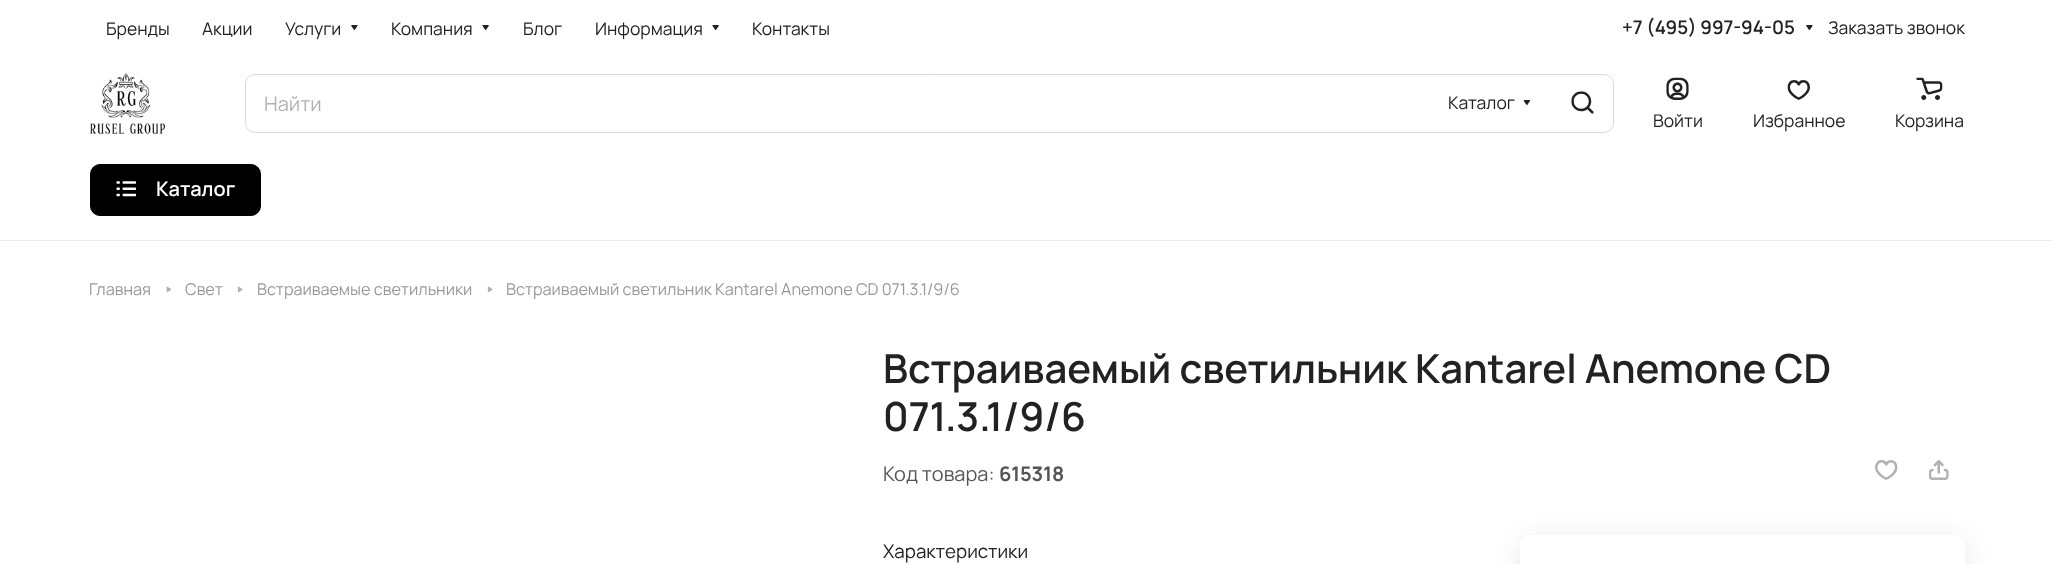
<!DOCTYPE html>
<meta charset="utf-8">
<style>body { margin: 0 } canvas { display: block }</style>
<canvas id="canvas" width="2053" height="564"></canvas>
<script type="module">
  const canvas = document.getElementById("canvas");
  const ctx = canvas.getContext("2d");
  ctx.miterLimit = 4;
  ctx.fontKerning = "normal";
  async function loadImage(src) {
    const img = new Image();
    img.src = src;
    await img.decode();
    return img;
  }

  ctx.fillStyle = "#ffffff";
  ctx.fillRect(0, 0, 2053, 564);
  ctx.fillStyle = "#ededed";
  ctx.fillRect(0, 240, 2053, 1);
  ctx.font = "200 17.5px Manrope";
  ctx.fillStyle = "#222222";
  ctx.fillText("Бренды", 106, 35);
  ctx.fillText("Акции", 202, 35);
  ctx.fillText("Услуги", 285, 35);
  ctx.drawImage(await loadImage("img1.png"), 351, 25, 7, 5);
  ctx.fillText("Компания", 391, 35);
  ctx.drawImage(await loadImage("img2.png"), 482, 25, 7, 5);
  ctx.fillText("Блог", 523, 35);
  ctx.fillText("Информация", 595, 35);
  ctx.drawImage(await loadImage("img2.png"), 712, 25, 7, 5);
  ctx.fillText("Контакты", 752, 35);
  ctx.font = "200 18.75px 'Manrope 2'";
  ctx.fillText("+7 (495) 997-94-05", 1622, 34);
  ctx.drawImage(await loadImage("img1.png"), 1806, 25, 7, 5);
  ctx.font = "200 17.5px Manrope";
  ctx.fillText("Заказать звонок", 1828, 34);
  ctx.drawImage(await loadImage("img3.png"), 90, 72, 75, 62);
  ctx.beginPath();
  ctx.roundRect(245.5, 74.5, 1368, 58, 9.5);
  ctx.strokeStyle = "#dadada";
  ctx.stroke();
  ctx.font = "200 20px Manrope";
  ctx.fillStyle = "#b2b2b2";
  ctx.fillText("Найти", 264, 111);
  ctx.font = "200 17.5px Manrope";
  ctx.fillStyle = "#222222";
  ctx.fillText("Каталог", 1448, 109);
  ctx.drawImage(await loadImage("img4.png"), 1523, 100, 7, 5);
  ctx.drawImage(await loadImage("img5.png"), 1571, 91, 23, 23);
  ctx.drawImage(await loadImage("img6.png"), 1666, 77, 23, 23);
  ctx.fillText("Войти", 1653, 127);
  ctx.drawImage(await loadImage("img7.png"), 1787, 80, 23, 20);
  ctx.fillText("Избранное", 1753, 127);
  ctx.drawImage(await loadImage("img8.png"), 1916, 77, 27, 23);
  ctx.fillText("Корзина", 1895, 127);
  ctx.fillStyle = "#000000";
  ctx.beginPath();
  ctx.roundRect(90.5, 164.5, 170, 51, 9.5);
  ctx.fill();
  ctx.strokeStyle = "#000000";
  ctx.stroke();
  ctx.drawImage(await loadImage("img9.png"), 116, 181, 21, 16);
  ctx.font = "200 20px 'Manrope 2'";
  ctx.fillStyle = "#ffffff";
  ctx.fillText("Каталог", 156, 196);
  ctx.font = "200 16.25px Manrope";
  ctx.fillStyle = "#999999";
  ctx.fillText("Главная", 89, 295);
  ctx.drawImage(await loadImage("img10.png"), 166, 286, 6, 6);
  ctx.fillText("Свет", 185, 295);
  ctx.drawImage(await loadImage("img11.png"), 237, 286, 6, 6);
  ctx.fillText("Встраиваемые светильники", 257, 295);
  ctx.drawImage(await loadImage("img11.png"), 487, 286, 6, 6);
  ctx.fillText("Встраиваемый светильник Kantarel Anemone CD 071.3.1/9/6", 506, 295);
  ctx.font = "200 40px 'Manrope 2'";
  ctx.fillStyle = "#222222";
  ctx.fillText("Встраиваемый светильник Kantarel Anemone CD", 883, 383);
  ctx.fillText("071.3.1/9/6", 883, 431);
  ctx.font = "200 20px Manrope";
  ctx.fillStyle = "#555555";
  ctx.fillText("Код товара:", 883, 481);
  ctx.font = "200 20px 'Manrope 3'";
  ctx.fillText("615318", 999, 481);
  ctx.drawImage(await loadImage("img12.png"), 1875, 460, 23, 20);
  ctx.drawImage(await loadImage("img13.png"), 1929, 460, 20, 20);
  ctx.font = "200 18.75px Manrope";
  ctx.fillStyle = "#222222";
  ctx.fillText("Характеристики", 883, 558);
  ctx.save();
  ctx.beginPath();
  ctx.moveTo(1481, 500);
  ctx.lineTo(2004, 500);
  ctx.lineTo(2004, 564);
  ctx.lineTo(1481, 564);
  ctx.closePath();
  ctx.moveTo(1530, 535);
  ctx.lineTo(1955, 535);
  ctx.bezierCurveTo(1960.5, 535, 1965, 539.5, 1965, 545);
  ctx.lineTo(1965, 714);
  ctx.bezierCurveTo(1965, 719.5, 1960.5, 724, 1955, 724);
  ctx.lineTo(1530, 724);
  ctx.bezierCurveTo(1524.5, 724, 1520, 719.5, 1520, 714);
  ctx.lineTo(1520, 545);
  ctx.bezierCurveTo(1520, 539.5, 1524.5, 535, 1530, 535);
  ctx.closePath();
  ctx.clip("evenodd");
  ctx.fillStyle = "rgba(34, 34, 34, 0.1)";
  ctx.filter = "blur(12.5px)";
  ctx.beginPath();
  ctx.roundRect(1520, 539, 445, 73, 10);
  ctx.fill();
  ctx.filter = "none";
  ctx.restore();
</script>
